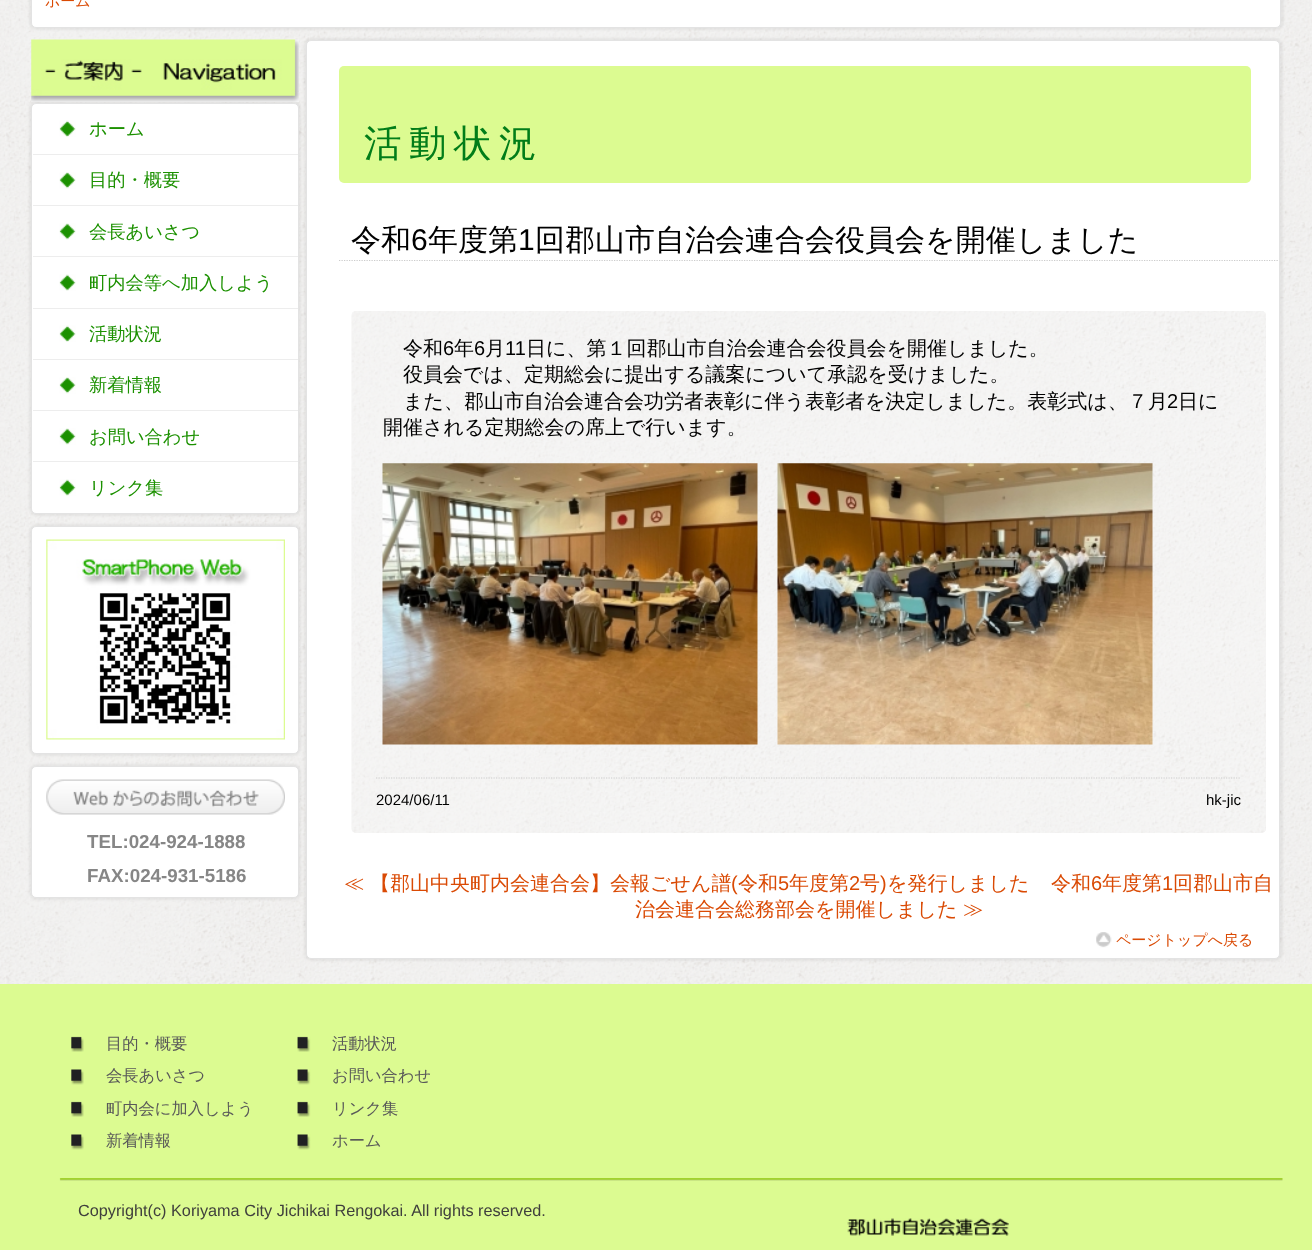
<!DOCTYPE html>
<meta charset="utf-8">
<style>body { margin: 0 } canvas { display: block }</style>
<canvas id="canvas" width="1312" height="1250"></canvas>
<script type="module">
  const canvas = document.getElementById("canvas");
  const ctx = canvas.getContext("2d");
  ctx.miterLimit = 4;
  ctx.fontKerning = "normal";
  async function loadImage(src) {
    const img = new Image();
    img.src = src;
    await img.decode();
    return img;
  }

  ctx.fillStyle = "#ffffff";
  ctx.fillRect(0, 0, 1312, 1250);
  ctx.drawImage(await loadImage("img1.png"), 0, 0, 1312, 984);
  ctx.fillStyle = "rgba(0, 0, 0, 0.05)";
  ctx.filter = "blur(1px)";
  ctx.beginPath();
  ctx.roundRect(29, -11, 1255, 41, 8);
  ctx.fill();
  ctx.filter = "none";
  ctx.fillStyle = "#ffffff";
  ctx.beginPath();
  ctx.roundRect(31.5, -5.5, 1249, 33, 4.5);
  ctx.fill();
  ctx.strokeStyle = "#e3e3e3";
  ctx.stroke();
  ctx.font = "500 15px WenQuanYi Zen Hei";
  ctx.fillStyle = "#da4a04";
  ctx.fillText("ホーム", 45, 6);
  ctx.fillStyle = "rgba(0, 0, 0, 0.05)";
  ctx.filter = "blur(1px)";
  ctx.beginPath();
  ctx.roundRect(29, 100, 272, 416, 8);
  ctx.fill();
  ctx.filter = "none";
  ctx.drawImage(await loadImage("img2.png"), 31, 39, 268, 63);
  ctx.fillStyle = "#ffffff";
  ctx.beginPath();
  ctx.roundRect(31.5, 103.5, 267, 410, 4.5);
  ctx.fill();
  ctx.stroke();
  ctx.drawImage(await loadImage("img3.png"), 59, 120, 17, 17);
  ctx.fillStyle = "#ededed";
  ctx.fillRect(33, 154, 265, 1);
  ctx.font = "500 18.25px WenQuanYi Zen Hei";
  ctx.fillStyle = "#1c9101";
  ctx.fillText("ホーム", 89, 135);
  ctx.drawImage(await loadImage("img4.png"), 59, 172, 17, 17);
  ctx.fillStyle = "#ededed";
  ctx.fillRect(33, 205, 265, 1);
  ctx.fillStyle = "#1c9101";
  ctx.fillText("目的・概要", 89, 186);
  ctx.drawImage(await loadImage("img5.png"), 59, 223, 17, 17);
  ctx.fillStyle = "#ededed";
  ctx.fillRect(33, 256, 265, 1);
  ctx.fillStyle = "#1c9101";
  ctx.fillText("会長あいさつ", 89, 238);
  ctx.drawImage(await loadImage("img6.png"), 59, 274, 17, 17);
  ctx.fillStyle = "#ededed";
  ctx.fillRect(33, 308, 265, 1);
  ctx.fillStyle = "#1c9101";
  ctx.fillText("町内会等へ加入しよう", 89, 289);
  ctx.drawImage(await loadImage("img3.png"), 59, 325, 17, 17);
  ctx.fillStyle = "#ededed";
  ctx.fillRect(33, 359, 265, 1);
  ctx.fillStyle = "#1c9101";
  ctx.fillText("活動状況", 89, 340);
  ctx.drawImage(await loadImage("img4.png"), 59, 377, 17, 17);
  ctx.fillStyle = "#ededed";
  ctx.fillRect(33, 410, 265, 1);
  ctx.fillStyle = "#1c9101";
  ctx.fillText("新着情報", 89, 391);
  ctx.drawImage(await loadImage("img5.png"), 59, 428, 17, 17);
  ctx.fillStyle = "#ededed";
  ctx.fillRect(33, 461, 265, 1);
  ctx.fillStyle = "#1c9101";
  ctx.fillText("お問い合わせ", 89, 443);
  ctx.drawImage(await loadImage("img6.png"), 59, 479, 17, 17);
  ctx.fillText("リンク集", 89, 494);
  ctx.fillStyle = "rgba(0, 0, 0, 0.05)";
  ctx.filter = "blur(1px)";
  ctx.beginPath();
  ctx.roundRect(29, 524, 272, 232, 8);
  ctx.fill();
  ctx.filter = "none";
  ctx.fillStyle = "#ffffff";
  ctx.beginPath();
  ctx.roundRect(31.5, 526.5, 267, 227, 4.5);
  ctx.fill();
  ctx.stroke();
  ctx.drawImage(await loadImage("img7.png"), 46, 539, 239, 201);
  ctx.fillStyle = "rgba(0, 0, 0, 0.05)";
  ctx.filter = "blur(1px)";
  ctx.beginPath();
  ctx.roundRect(29, 764, 272, 136, 8);
  ctx.fill();
  ctx.filter = "none";
  ctx.fillStyle = "#ffffff";
  ctx.beginPath();
  ctx.roundRect(31.5, 766.5, 267, 131, 4.5);
  ctx.fill();
  ctx.stroke();
  ctx.drawImage(await loadImage("img8.png"), 46, 779, 239, 36);
  ctx.font = "bold 18.75px Liberation Sans";
  ctx.fillStyle = "#868686";
  ctx.fillText("TEL:024-924-1888", 87, 848);
  ctx.fillText("FAX:024-931-5186", 87, 882);
  ctx.fillStyle = "rgba(0, 0, 0, 0.05)";
  ctx.filter = "blur(1px)";
  ctx.beginPath();
  ctx.roundRect(304, 38, 979, 923, 8);
  ctx.fill();
  ctx.filter = "none";
  ctx.fillStyle = "#ffffff";
  ctx.beginPath();
  ctx.roundRect(306.5, 40.5, 973, 918, 4.5);
  ctx.fill();
  ctx.stroke();
  ctx.fillStyle = "#dcfb91";
  ctx.beginPath();
  ctx.roundRect(339, 66, 912, 117, 5);
  ctx.fill();
  ctx.letterSpacing = "7.5px";
  ctx.font = "500 37.5px WenQuanYi Zen Hei";
  ctx.fillStyle = "#027d19";
  ctx.fillText("活動状況", 364, 156);
  ctx.beginPath();
  ctx.moveTo(339, 260.5);
  ctx.lineTo(1279, 260.5);
  ctx.strokeStyle = "#cccccc";
  ctx.lineWidth = 1.2;
  ctx.setLineDash([1.25, 1.25]);
  ctx.stroke();
  ctx.letterSpacing = "0px";
  ctx.font = "500 30px WenQuanYi Zen Hei";
  ctx.fillStyle = "#000000";
  ctx.fillText("令和", 351, 250);
  ctx.font = "30px Liberation Sans";
  ctx.fillText("6", 411, 250);
  ctx.font = "500 30px WenQuanYi Zen Hei";
  ctx.fillText("年度第", 428, 250);
  ctx.font = "30px Liberation Sans";
  ctx.fillText("1", 518, 250);
  ctx.font = "500 30px WenQuanYi Zen Hei";
  ctx.fillText("回郡山市自治会連合会役員会を開催しました", 535, 250);
  ctx.drawImage(await loadImage("img9.png"), 351, 311, 915, 522);
  ctx.font = "500 20px WenQuanYi Zen Hei";
  ctx.fillText("令和", 403, 355);
  ctx.font = "20px Liberation Sans";
  ctx.fillText("6", 443, 355);
  ctx.font = "500 20px WenQuanYi Zen Hei";
  ctx.fillText("年", 454, 355);
  ctx.font = "20px Liberation Sans";
  ctx.fillText("6", 474, 355);
  ctx.font = "500 20px WenQuanYi Zen Hei";
  ctx.fillText("月", 485, 355);
  ctx.font = "20px Liberation Sans";
  ctx.fillText("11", 505, 355);
  ctx.font = "500 20px WenQuanYi Zen Hei";
  ctx.fillText("日に、第１回郡山市自治会連合会役員会を開催しました。", 526, 355);
  ctx.fillText("役員会では、定期総会に提出する議案について承認を受けました。", 403, 381);
  ctx.fillText("また、郡山市自治会連合会功労者表彰に伴う表彰者を決定しました。表彰式は、７月", 403, 408);
  ctx.font = "20px Liberation Sans";
  ctx.fillText("2", 1167, 408);
  ctx.font = "500 20px WenQuanYi Zen Hei";
  ctx.fillText("日に", 1178, 408);
  ctx.fillText("開催される定期総会の席上で行います。", 383, 434);
  ctx.drawImage(await loadImage("img10.png"), 382, 463, 376, 282);
  ctx.drawImage(await loadImage("img11.png"), 777, 463, 376, 282);
  ctx.beginPath();
  ctx.moveTo(376, 778);
  ctx.lineTo(1241, 778);
  ctx.stroke();
  ctx.font = "15px Liberation Sans";
  ctx.fillText("2024/06/11", 376, 805);
  ctx.fillText("hk-jic", 1206, 805);
  ctx.font = "500 20px WenQuanYi Zen Hei";
  ctx.fillStyle = "#da4a04";
  ctx.fillText("≪ 【郡山中央町内会連合会】会報ごせん譜", 344, 890);
  ctx.font = "20px Liberation Sans";
  ctx.fillText("(", 731, 890);
  ctx.font = "500 20px WenQuanYi Zen Hei";
  ctx.fillText("令和", 738, 890);
  ctx.font = "20px Liberation Sans";
  ctx.fillText("5", 778, 890);
  ctx.font = "500 20px WenQuanYi Zen Hei";
  ctx.fillText("年度第", 789, 890);
  ctx.font = "20px Liberation Sans";
  ctx.fillText("2", 849, 890);
  ctx.font = "500 20px WenQuanYi Zen Hei";
  ctx.fillText("号", 860, 890);
  ctx.font = "20px Liberation Sans";
  ctx.fillText(")", 880, 890);
  ctx.font = "500 20px WenQuanYi Zen Hei";
  ctx.fillText("を発行しました", 887, 890);
  ctx.fillText("令和", 1051, 890);
  ctx.font = "20px Liberation Sans";
  ctx.fillText("6", 1091, 890);
  ctx.font = "500 20px WenQuanYi Zen Hei";
  ctx.fillText("年度第", 1102, 890);
  ctx.font = "20px Liberation Sans";
  ctx.fillText("1", 1162, 890);
  ctx.font = "500 20px WenQuanYi Zen Hei";
  ctx.fillText("回郡山市自", 1173, 890);
  ctx.fillText("治会連合会総務部会を開催しました ≫", 635, 916);
  ctx.drawImage(await loadImage("img12.png"), 1096, 932, 16, 16);
  ctx.font = "500 15px WenQuanYi Zen Hei";
  ctx.fillText("ページトップへ戻る", 1116, 945);
  ctx.fillStyle = "#dcfb91";
  ctx.fillRect(0, 984, 1312, 266);
  ctx.drawImage(await loadImage("img13.png"), 71, 1036, 13, 16);
  ctx.font = "500 16.25px WenQuanYi Zen Hei";
  ctx.fillStyle = "#595959";
  ctx.fillText("目的・概要", 106, 1049);
  ctx.drawImage(await loadImage("img14.png"), 297, 1036, 14, 16);
  ctx.fillText("活動状況", 332, 1049);
  ctx.drawImage(await loadImage("img15.png"), 71, 1069, 13, 16);
  ctx.fillText("会長あいさつ", 106, 1081);
  ctx.drawImage(await loadImage("img16.png"), 297, 1069, 14, 16);
  ctx.fillText("お問い合わせ", 332, 1081);
  ctx.drawImage(await loadImage("img13.png"), 71, 1101, 13, 16);
  ctx.fillText("町内会に加入しよう", 106, 1114);
  ctx.drawImage(await loadImage("img14.png"), 297, 1101, 14, 16);
  ctx.fillText("リンク集", 332, 1114);
  ctx.drawImage(await loadImage("img15.png"), 71, 1134, 13, 16);
  ctx.fillText("新着情報", 106, 1146);
  ctx.drawImage(await loadImage("img16.png"), 297, 1134, 14, 16);
  ctx.fillText("ホーム", 332, 1146);
  ctx.drawImage(await loadImage("img17.png"), 59, 1178, 1224, 3);
  ctx.font = "16.25px Liberation Sans";
  ctx.fillStyle = "#40403d";
  ctx.fillText("Copyright(c) Koriyama City Jichikai Rengokai. All rights reserved.", 78, 1216);
  ctx.drawImage(await loadImage("img18.png"), 847, 1218, 162, 18);
</script>
